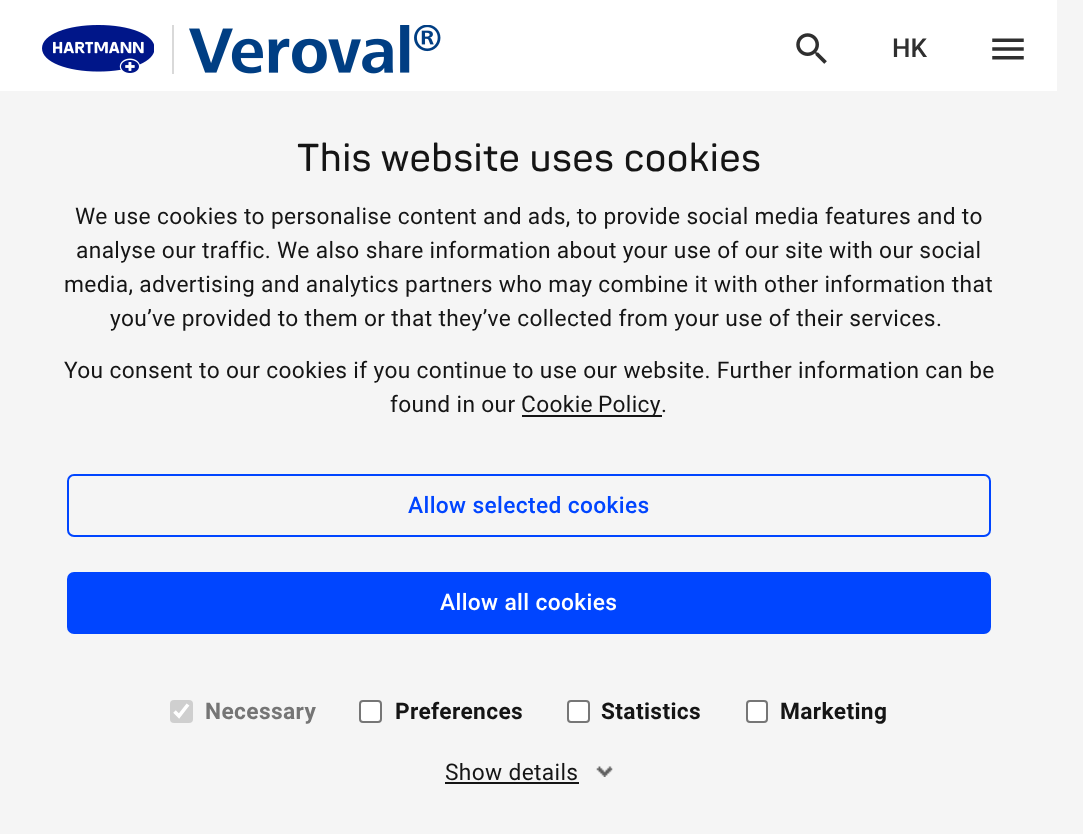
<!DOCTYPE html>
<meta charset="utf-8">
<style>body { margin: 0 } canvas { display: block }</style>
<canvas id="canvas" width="1083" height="834"></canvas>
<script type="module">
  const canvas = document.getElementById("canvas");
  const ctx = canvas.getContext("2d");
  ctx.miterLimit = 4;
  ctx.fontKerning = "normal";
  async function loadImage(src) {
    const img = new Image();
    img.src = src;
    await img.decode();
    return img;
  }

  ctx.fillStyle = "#f5f5f5";
  ctx.fillRect(0, 0, 1083, 834);
  ctx.fillStyle = "#ffffff";
  ctx.fillRect(0, 0, 1057, 91);
  ctx.fillStyle = "#d9d9d9";
  ctx.fillRect(172, 25, 2, 49);
  ctx.drawImage(await loadImage("img1.png"), 42, 25, 112, 48);
  ctx.drawImage(await loadImage("img2.png"), 189, 25, 252, 49);
  ctx.drawImage(await loadImage("img3.png"), 796, 33, 31, 31);
  ctx.font = "500 26px Roboto";
  ctx.fillStyle = "#2f2f2f";
  ctx.fillText("HK", 892, 57);
  ctx.drawImage(await loadImage("img4.png"), 992, 38, 32, 22);
  ctx.letterSpacing = "0.4px";
  ctx.font = "600 38.5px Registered";
  ctx.fillStyle = "#151515";
  ctx.fillText("This website uses cookies", 297, 171);
  ctx.letterSpacing = "0.35px";
  ctx.font = "22.75px Roboto";
  ctx.fillText("We use cookies to personalise content and ads, to provide social media features and to", 75, 224);
  ctx.fillText("analyse our traffic. We also share information about your use of our site with our social", 76, 258);
  ctx.fillText("media, advertising and analytics partners who may combine it with other information that", 64, 292);
  ctx.fillText("you’ve provided to them or that they’ve collected from your use of their services.", 110, 326);
  ctx.fillText("You consent to our cookies if you continue to use our website. Further information can be", 64, 378);
  ctx.fillText("found in our", 390, 412);
  ctx.fillRect(522, 415, 140, 2);
  ctx.wordSpacing = "-1px";
  ctx.fillText("Cookie Policy", 521, 412);
  ctx.wordSpacing = "0px";
  ctx.fillText(".", 661, 412);
  ctx.beginPath();
  ctx.roundRect(68, 475, 922, 61, 6);
  ctx.strokeStyle = "#0045ff";
  ctx.lineWidth = 2;
  ctx.stroke();
  ctx.font = "500 22.75px Roboto";
  ctx.fillStyle = "#0045ff";
  ctx.fillText("Allow selected cookies", 408, 513);
  ctx.beginPath();
  ctx.roundRect(67, 572, 924, 62, 7);
  ctx.fill();
  ctx.fillStyle = "#ffffff";
  ctx.fillText("Allow all cookies", 440, 610);
  ctx.fillStyle = "#cfcfcf";
  ctx.beginPath();
  ctx.roundRect(170, 700, 23, 23, 4);
  ctx.fill();
  ctx.beginPath();
  ctx.moveTo(174.5, 711.5);
  ctx.lineTo(179, 716);
  ctx.lineTo(188, 704.5);
  ctx.strokeStyle = "#ffffff";
  ctx.lineWidth = 3.6;
  ctx.stroke();
  ctx.font = "bold 22.75px Roboto";
  ctx.fillStyle = "#757575";
  ctx.fillText("Necessary", 205, 719);
  ctx.fillStyle = "#ffffff";
  ctx.beginPath();
  ctx.roundRect(360, 701, 21, 21, 3);
  ctx.fill();
  ctx.strokeStyle = "#767676";
  ctx.lineWidth = 2;
  ctx.stroke();
  ctx.fillStyle = "#151515";
  ctx.fillText("Preferences", 395, 719);
  ctx.fillStyle = "#ffffff";
  ctx.beginPath();
  ctx.roundRect(568, 701, 21, 21, 3);
  ctx.fill();
  ctx.stroke();
  ctx.fillStyle = "#151515";
  ctx.fillText("Statistics", 601, 719);
  ctx.fillStyle = "#ffffff";
  ctx.beginPath();
  ctx.roundRect(747, 701, 20, 21, 3);
  ctx.fill();
  ctx.stroke();
  ctx.fillStyle = "#151515";
  ctx.fillText("Marketing", 780, 719);
  ctx.drawImage(await loadImage("img5.png"), 596, 766, 17, 11);
  ctx.font = "22.75px Roboto";
  ctx.fillText("Show details", 445, 780);
  ctx.fillRect(445, 782, 134, 2);
</script>
